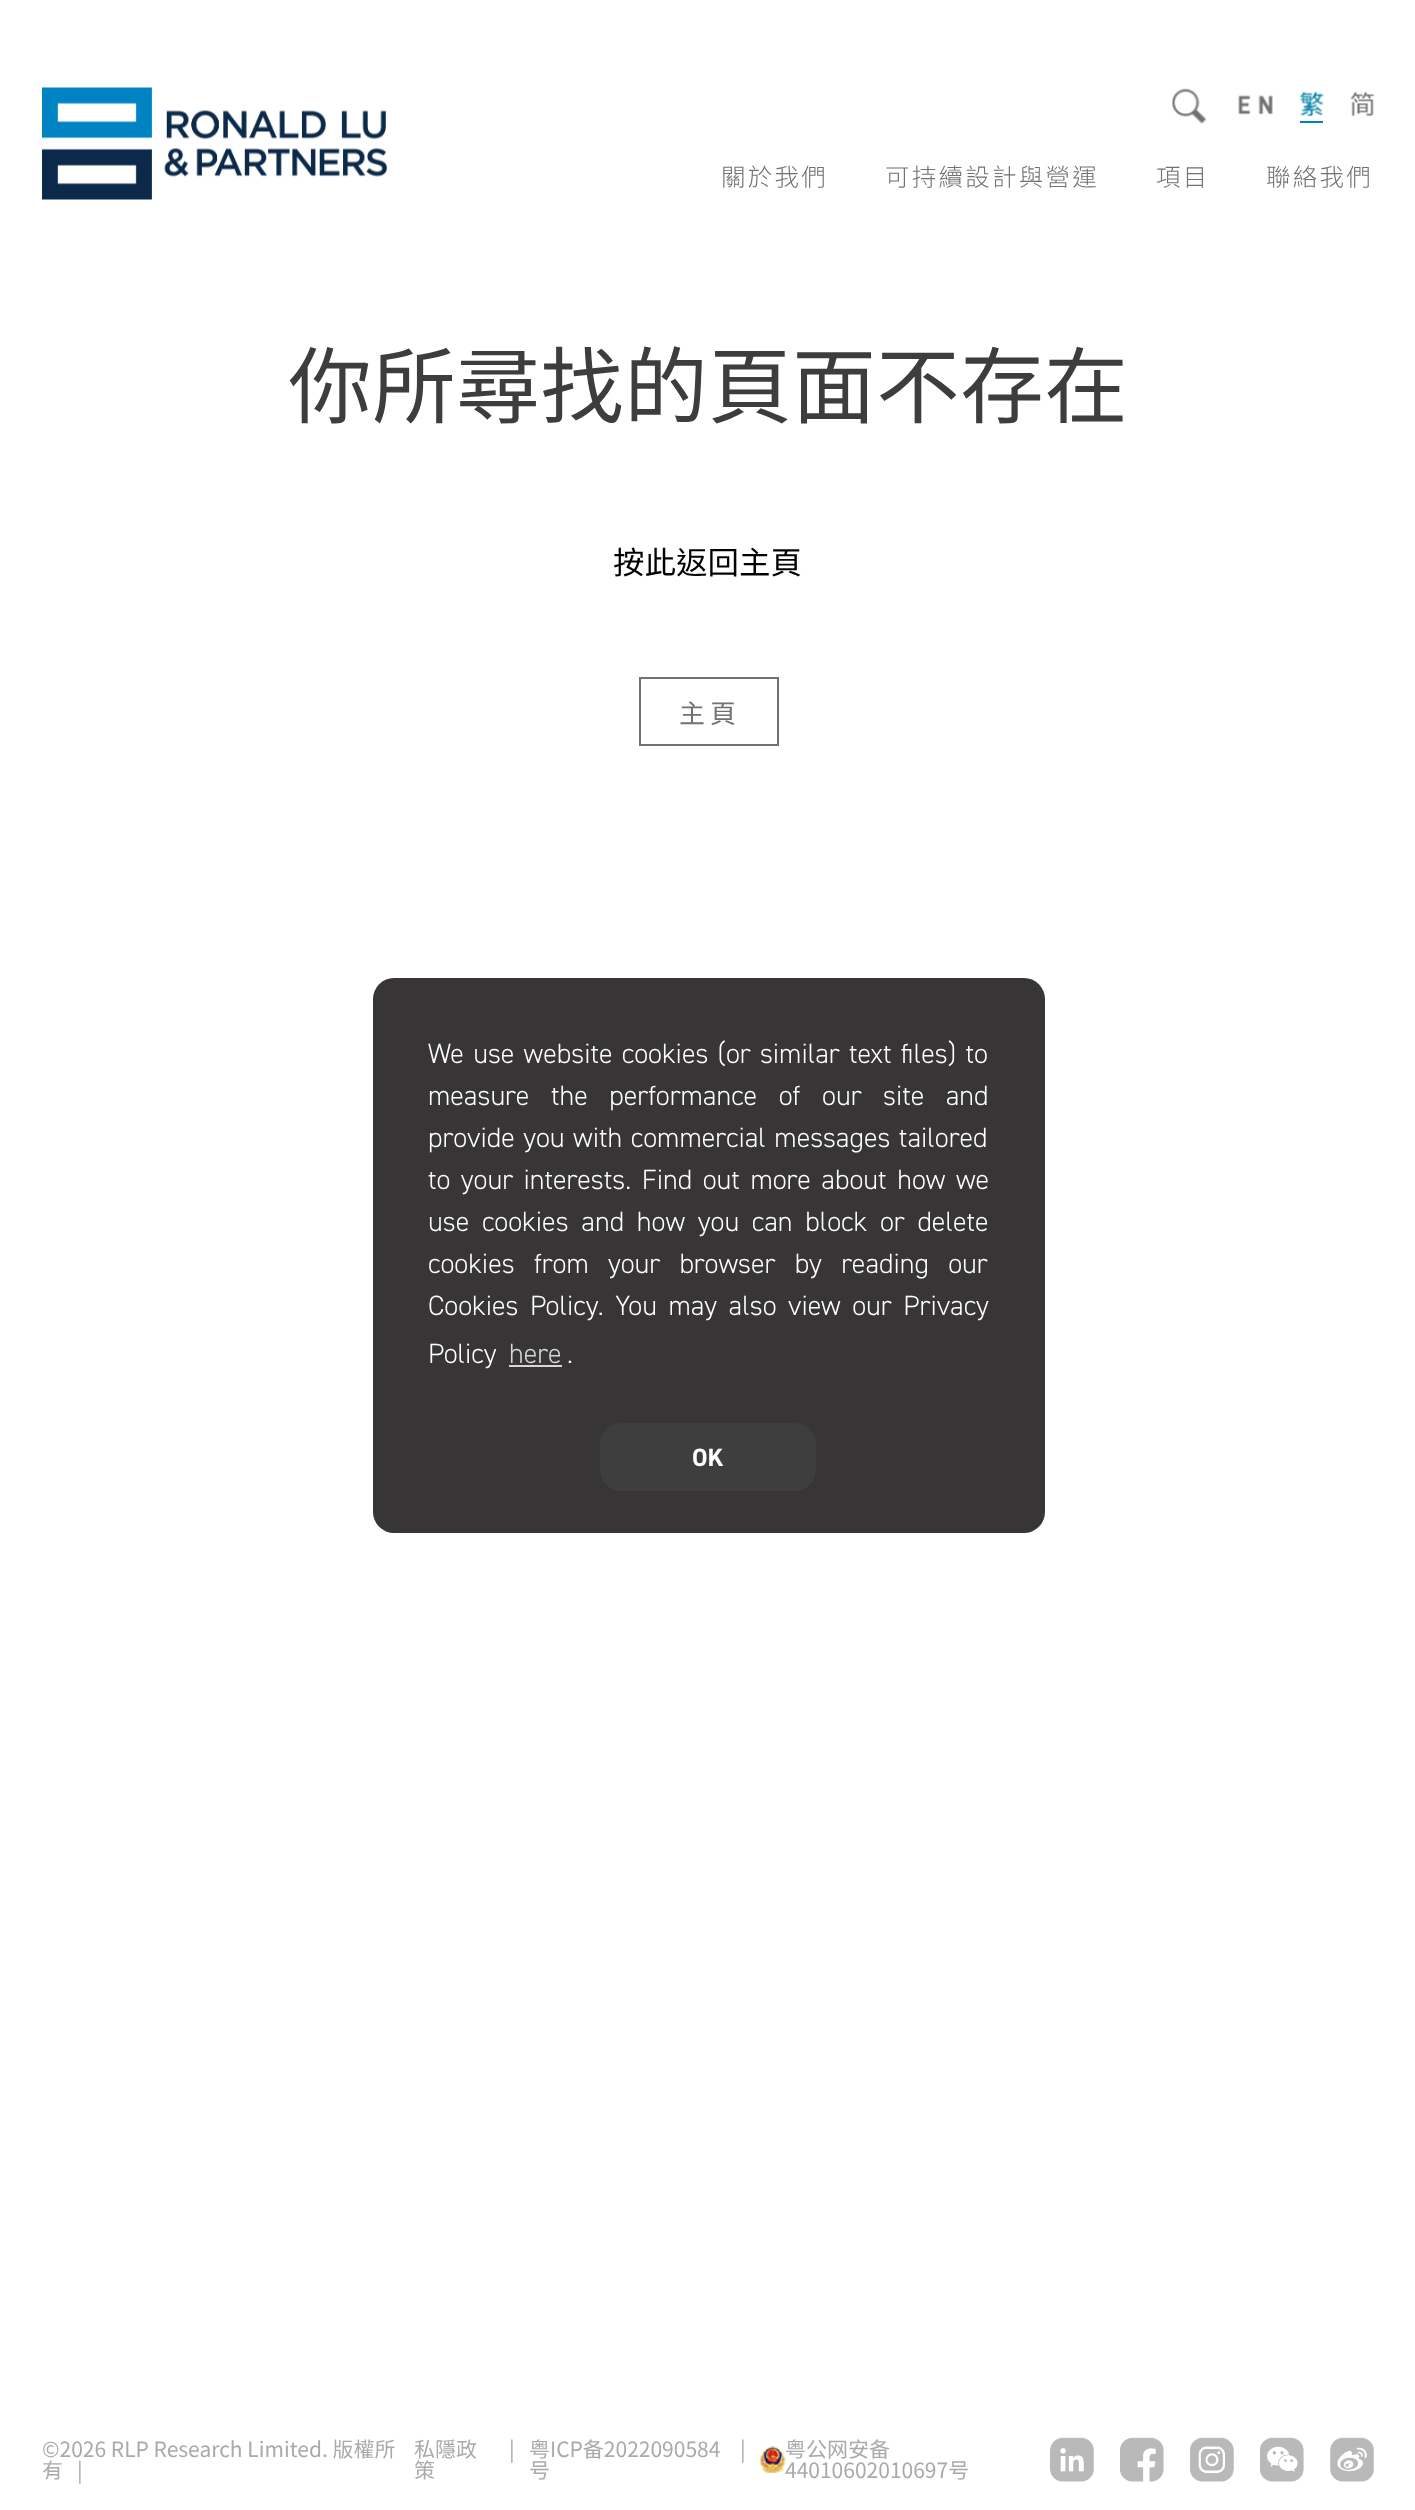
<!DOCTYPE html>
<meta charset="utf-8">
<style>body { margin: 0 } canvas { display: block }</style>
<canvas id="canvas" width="1415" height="2510"></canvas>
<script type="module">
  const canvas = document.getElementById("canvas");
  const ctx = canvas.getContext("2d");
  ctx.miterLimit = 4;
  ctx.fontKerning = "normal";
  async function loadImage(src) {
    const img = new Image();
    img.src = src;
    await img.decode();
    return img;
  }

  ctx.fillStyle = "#ffffff";
  ctx.fillRect(0, 0, 1415, 2510);
  ctx.drawImage(await loadImage("img1.png"), 42, 87, 345, 113);
  ctx.drawImage(await loadImage("img2.png"), 1172, 88, 35, 36);
  ctx.drawImage(await loadImage("img3.png"), 1238, 95, 35, 20);
  ctx.drawImage(await loadImage("img4.png"), 1299, 91, 25, 26);
  ctx.fillStyle = "#0082c2";
  ctx.fillRect(1300, 121, 23, 2);
  ctx.drawImage(await loadImage("img5.png"), 1350, 91, 25, 26);
  ctx.letterSpacing = "2.25px";
  ctx.font = "300 24.5px Noto Sans TC";
  ctx.fillStyle = "#727272";
  ctx.fillText("關於我們", 721, 186);
  ctx.fillText("可持續設計與營運", 885, 186);
  ctx.fillText("項目", 1156, 186);
  ctx.fillText("聯絡我們", 1266, 186);
  ctx.letterSpacing = "0px";
  ctx.font = "84px Noto Sans TC";
  ctx.fillStyle = "#3d3d3d";
  ctx.fillText("你所尋找的頁面不存在", 288, 417);
  ctx.font = "31.5px Noto Sans TC";
  ctx.fillStyle = "#000000";
  ctx.fillText("按此返回主頁", 613, 574);
  ctx.strokeStyle = "#727272";
  ctx.lineWidth = 2;
  ctx.strokeRect(640, 678, 138, 67);
  ctx.letterSpacing = "5px";
  ctx.font = "26px Noto Sans TC";
  ctx.fillStyle = "#727272";
  ctx.fillText("主頁", 679, 723);
  ctx.fillStyle = "#383536";
  ctx.beginPath();
  ctx.roundRect(373, 978, 672, 555, 21);
  ctx.fill();
  ctx.letterSpacing = "0px";
  ctx.wordSpacing = "2.25px";
  ctx.font = "300 28px 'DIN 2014'";
  ctx.fillStyle = "#ffffff";
  ctx.fillText("We use website cookies (or similar text files) to", 428, 1063);
  ctx.wordSpacing = "14.5px";
  ctx.fillText("measure the performance of our site and", 428, 1105);
  ctx.wordSpacing = "1.5px";
  ctx.fillText("provide you with commercial messages tailored", 428, 1147);
  ctx.wordSpacing = "3.5px";
  ctx.fillText("to your interests. Find out more about how we", 428, 1189);
  ctx.wordSpacing = "5.75px";
  ctx.fillText("use cookies and how you can block or delete", 428, 1231);
  ctx.wordSpacing = "12.25px";
  ctx.fillText("cookies from your browser by reading our", 428, 1273);
  ctx.wordSpacing = "4.5px";
  ctx.fillText("Cookies Policy. You may also view our Privacy", 428, 1315);
  ctx.wordSpacing = "0px";
  ctx.fillText("Policy", 428, 1363);
  ctx.fillStyle = "#d7d7d7";
  ctx.fillText("here", 509, 1363);
  ctx.fillRect(509, 1365, 53, 2);
  ctx.fillStyle = "#ffffff";
  ctx.fillText(".", 567, 1363);
  ctx.fillStyle = "#3e3e3e";
  ctx.beginPath();
  ctx.roundRect(600, 1423, 216, 68, 21);
  ctx.fill();
  ctx.font = "bold 25px 'DIN 2014'";
  ctx.fillStyle = "#ffffff";
  ctx.fillText("OK", 692, 1466);
  ctx.font = "21px Noto Sans TC";
  ctx.fillStyle = "#aaaaaa";
  ctx.fillText("©2026 RLP Research Limited. 版權所", 42, 2457);
  ctx.fillText("私隱政", 414, 2457);
  ctx.fillText("策", 414, 2478);
  ctx.fillText("|", 509, 2457);
  ctx.font = "21px Noto Sans CJK HK";
  ctx.fillText("粤ICP备2022090584", 529, 2457);
  ctx.fillText("号", 529, 2478);
  ctx.font = "21px Noto Sans TC";
  ctx.fillText("|", 740, 2457);
  ctx.font = "21px Noto Sans CJK HK";
  ctx.fillText("44010602010697号", 785, 2478);
  ctx.drawImage(await loadImage("img6.png"), 760, 2446, 26, 27);
  ctx.fillText("粤公网安备", 785, 2457);
  ctx.font = "21px Noto Sans TC";
  ctx.fillText("有   |", 42, 2478);
  ctx.drawImage(await loadImage("img7.png"), 1050, 2437, 44, 45);
  ctx.drawImage(await loadImage("img8.png"), 1120, 2437, 44, 45);
  ctx.drawImage(await loadImage("img9.png"), 1190, 2437, 44, 45);
  ctx.drawImage(await loadImage("img10.png"), 1260, 2437, 44, 45);
  ctx.drawImage(await loadImage("img11.png"), 1330, 2437, 44, 45);
</script>
